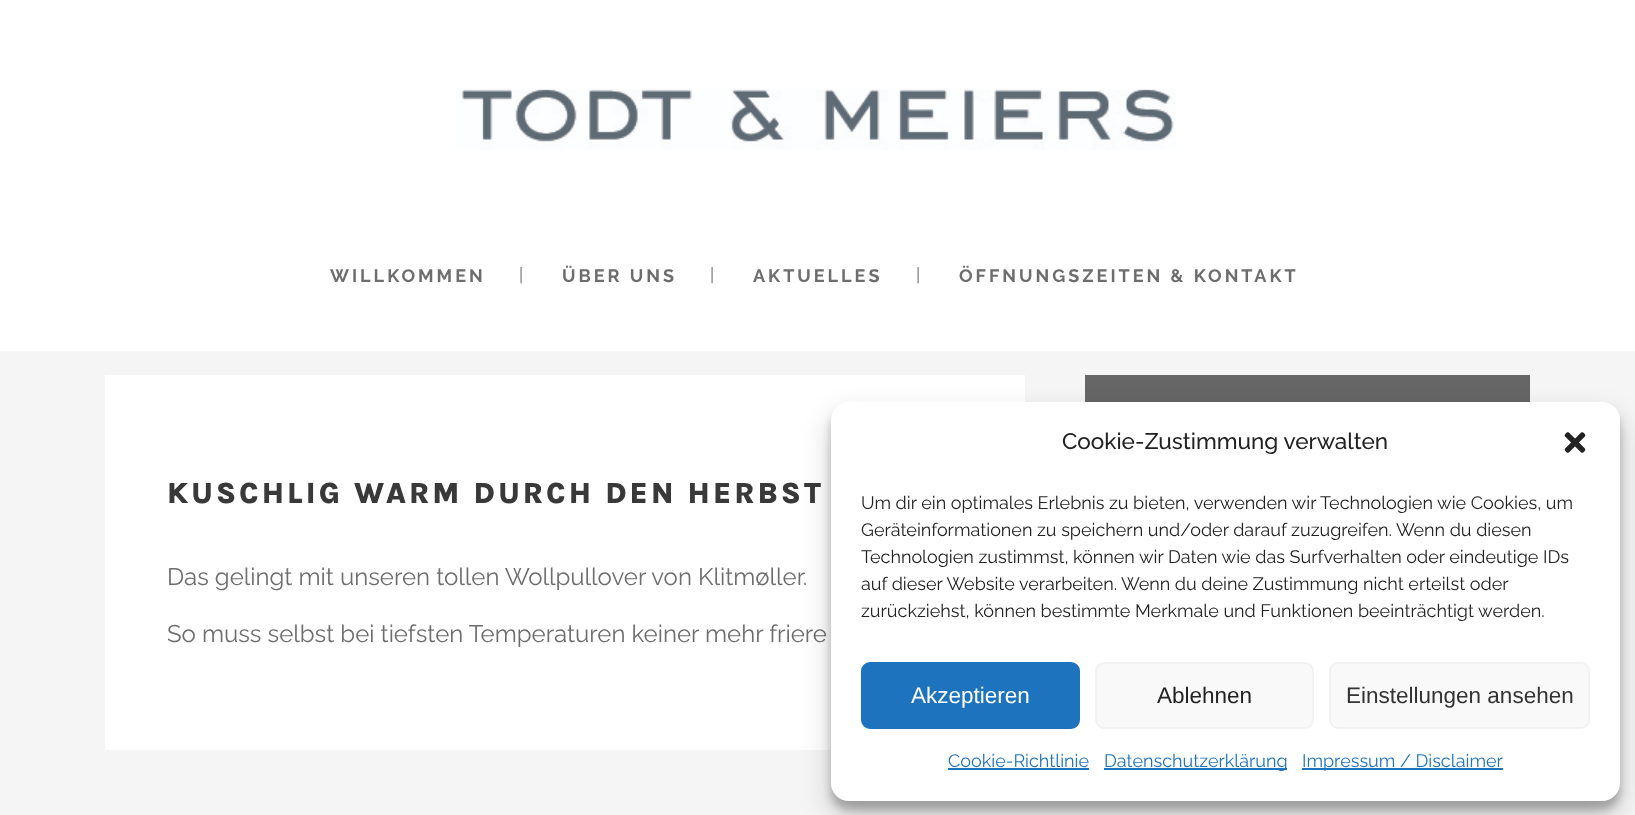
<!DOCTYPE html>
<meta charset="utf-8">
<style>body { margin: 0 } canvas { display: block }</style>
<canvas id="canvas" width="1635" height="815"></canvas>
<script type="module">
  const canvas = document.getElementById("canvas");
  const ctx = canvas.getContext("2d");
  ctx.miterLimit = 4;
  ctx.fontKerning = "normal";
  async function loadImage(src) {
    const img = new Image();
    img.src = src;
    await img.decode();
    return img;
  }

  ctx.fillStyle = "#f5f5f5";
  ctx.fillRect(0, 0, 1635, 815);
  ctx.fillStyle = "#ffffff";
  ctx.fillRect(0, 0, 1635, 351);
  ctx.drawImage(await loadImage("img1.png"), 456, 89, 720, 61);
  ctx.letterSpacing = "3px";
  ctx.font = "bold 18px Raleway";
  ctx.fillStyle = "#6d6d6d";
  ctx.fillText("WILLKOMMEN", 330, 282);
  ctx.letterSpacing = "0px";
  ctx.font = "18px Raleway";
  ctx.fillText("|", 519, 281);
  ctx.letterSpacing = "3px";
  ctx.font = "bold 18px Raleway";
  ctx.fillText("ÜBER UNS", 562, 282);
  ctx.letterSpacing = "0px";
  ctx.font = "18px Raleway";
  ctx.fillText("|", 710, 281);
  ctx.letterSpacing = "3px";
  ctx.font = "bold 18px Raleway";
  ctx.fillText("AKTUELLES", 753, 282);
  ctx.letterSpacing = "0px";
  ctx.font = "18px Raleway";
  ctx.fillText("|", 916, 281);
  ctx.letterSpacing = "3px";
  ctx.font = "bold 18px Raleway";
  ctx.fillText("ÖFFNUNGSZEITEN & KONTAKT", 959, 282);
  ctx.fillStyle = "#666666";
  ctx.fillRect(1085, 375, 445, 27);
  ctx.fillStyle = "#ffffff";
  ctx.fillRect(105, 375, 920, 375);
  ctx.font = "800 30px Karla";
  ctx.fillStyle = "#393939";
  ctx.fillText("KUSCHLIG WARM DURCH DEN HERBST", 167, 503);
  ctx.letterSpacing = "0px";
  ctx.font = "24px Raleway";
  ctx.fillStyle = "#6d6d6d";
  ctx.fillText("Das gelingt mit unseren tollen Wollpullover von Klitmøller.", 167, 585);
  ctx.fillText("So muss selbst bei tiefsten Temperaturen keiner mehr friere", 167, 642);
  ctx.fillStyle = "rgba(0, 0, 0, 0.23)";
  ctx.filter = "blur(4.5px)";
  ctx.beginPath();
  ctx.roundRect(831, 411, 789, 399, 18);
  ctx.fill();
  ctx.filter = "none";
  ctx.fillStyle = "rgba(0, 0, 0, 0.19)";
  ctx.filter = "blur(15px)";
  ctx.beginPath();
  ctx.roundRect(831, 417, 789, 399, 18);
  ctx.fill();
  ctx.filter = "none";
  ctx.fillStyle = "#ffffff";
  ctx.beginPath();
  ctx.roundRect(831, 402, 789, 399, 18);
  ctx.fill();
  ctx.font = "500 22.5px Raleway";
  ctx.fillStyle = "#222222";
  ctx.fillText("Cookie-Zustimmung verwalten", 1062, 449);
  ctx.drawImage(await loadImage("img2.png"), 1564, 432, 22, 21);
  ctx.font = "18px Raleway";
  ctx.fillText("Um dir ein optimales Erlebnis zu bieten, verwenden wir Technologien wie Cookies, um", 861, 509);
  ctx.fillText("Geräteinformationen zu speichern und/oder darauf zuzugreifen. Wenn du diesen", 861, 536);
  ctx.fillText("Technologien zustimmst, können wir Daten wie das Surfverhalten oder eindeutige IDs", 861, 563);
  ctx.fillText("auf dieser Website verarbeiten. Wenn du deine Zustimmung nicht erteilst oder", 861, 590);
  ctx.fillText("zurückziehst, können bestimmte Merkmale und Funktionen beeinträchtigt werden.", 861, 617);
  ctx.fillStyle = "#1e73be";
  ctx.beginPath();
  ctx.roundRect(862, 663, 217, 65, 8);
  ctx.fill();
  ctx.strokeStyle = "#1e73be";
  ctx.lineWidth = 2;
  ctx.stroke();
  ctx.font = "22.5px Liberation Sans";
  ctx.fillStyle = "#ffffff";
  ctx.fillText("Akzeptieren", 911, 703);
  ctx.fillStyle = "#f9f9f9";
  ctx.beginPath();
  ctx.roundRect(1096, 663, 217, 65, 8);
  ctx.fill();
  ctx.strokeStyle = "#f2f2f2";
  ctx.stroke();
  ctx.fillStyle = "#222222";
  ctx.fillText("Ablehnen", 1157, 703);
  ctx.fillStyle = "#f9f9f9";
  ctx.beginPath();
  ctx.roundRect(1330, 663, 259, 65, 8);
  ctx.fill();
  ctx.stroke();
  ctx.fillStyle = "#333333";
  ctx.fillText("Einstellungen ansehen", 1346, 703);
  ctx.font = "18px Raleway";
  ctx.fillStyle = "#1e73be";
  ctx.fillText("Cookie-Richtlinie", 948, 767);
  ctx.fillRect(948, 768, 141, 2);
  ctx.fillRect(1104, 768, 183, 2);
  ctx.fillText("Datenschutzerklärung", 1104, 767);
  ctx.fillRect(1302, 768, 201, 2);
  ctx.fillText("Impressum / Disclaimer", 1302, 767);
</script>
